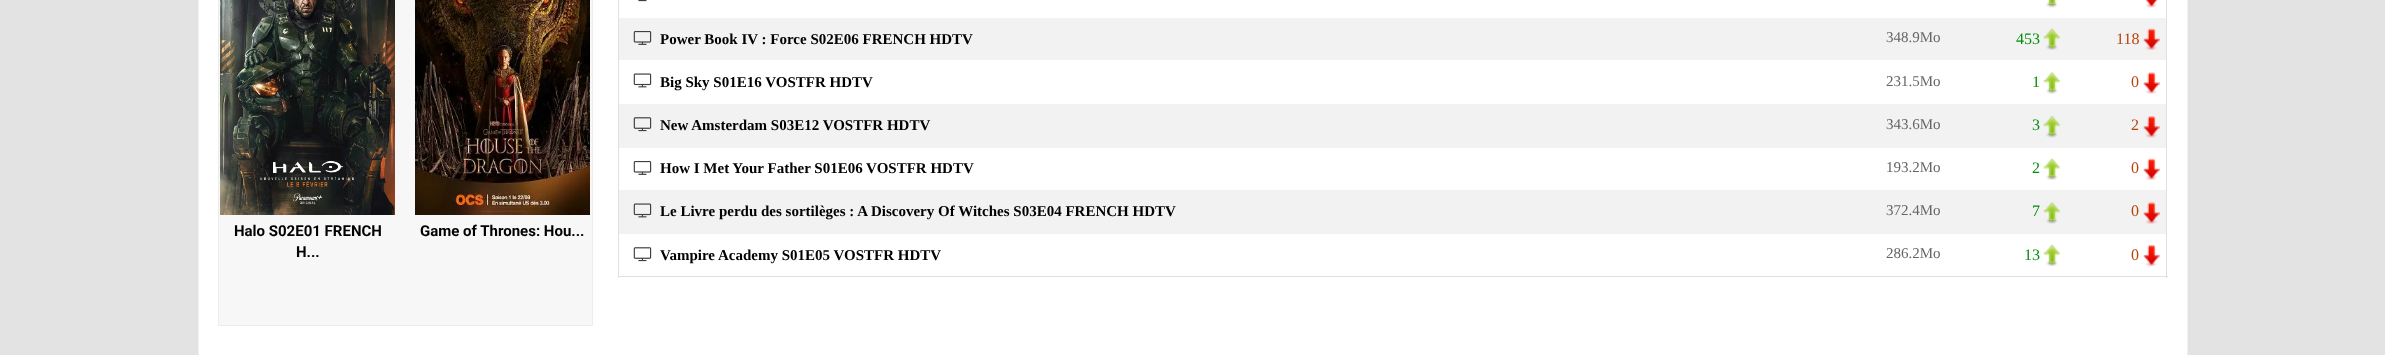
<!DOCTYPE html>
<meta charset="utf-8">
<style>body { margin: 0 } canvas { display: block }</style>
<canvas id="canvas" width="2385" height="355"></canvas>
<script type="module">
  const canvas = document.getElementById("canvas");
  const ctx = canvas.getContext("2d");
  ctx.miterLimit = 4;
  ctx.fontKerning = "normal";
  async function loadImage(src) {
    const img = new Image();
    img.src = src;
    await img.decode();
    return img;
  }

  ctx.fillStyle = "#e3e3e3";
  ctx.fillRect(0, 0, 2385, 355);
  ctx.fillStyle = "#ffffff";
  ctx.beginPath();
  ctx.rect(198.5, -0.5, 1989, 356);
  ctx.fill();
  ctx.strokeStyle = "#f1f1f1";
  ctx.stroke();
  ctx.fillStyle = "#f7f7f7";
  ctx.beginPath();
  ctx.rect(218.5, -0.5, 374, 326);
  ctx.fill();
  ctx.strokeStyle = "#ececec";
  ctx.stroke();
  ctx.drawImage(await loadImage("img1.png"), 220, 0, 175, 215);
  ctx.font = "bold 15px Roboto";
  ctx.fillStyle = "#000000";
  ctx.fillText("Halo S02E01 FRENCH", 234, 236);
  ctx.fillText("H...", 296, 257);
  ctx.drawImage(await loadImage("img2.png"), 415, 0, 175, 215);
  ctx.fillText("Game of Thrones: Hou...", 420, 236);
  ctx.fillStyle = "#e0e0e0";
  ctx.fillRect(2166, 0, 1, 278);
  ctx.fillRect(618, 276, 1550, 1);
  ctx.fillRect(618, 0, 1, 278);
  ctx.drawImage(await loadImage("img3.png"), 638, 0, 9, 2);
  ctx.drawImage(await loadImage("img4.png"), 2046, 0, 12, 8);
  ctx.drawImage(await loadImage("img5.png"), 2145, 0, 13, 8);
  ctx.fillStyle = "#f2f2f2";
  ctx.fillRect(619, 18, 1547, 42);
  ctx.drawImage(await loadImage("img6.png"), 633, 31, 19, 14);
  ctx.font = "bold 15px Liberation Serif";
  ctx.fillStyle = "#000000";
  ctx.fillText("Power Book IV : Force S02E06 FRENCH HDTV", 660, 44);
  ctx.font = "15px Liberation Serif";
  ctx.fillStyle = "#656565";
  ctx.fillText("348.9Mo", 1886, 42);
  ctx.font = "16px Liberation Serif";
  ctx.fillStyle = "#008f0d";
  ctx.fillText("453", 2016, 44);
  ctx.drawImage(await loadImage("img7.png"), 2043, 28, 17, 22);
  ctx.fillStyle = "#b94309";
  ctx.fillText("118", 2116, 44);
  ctx.drawImage(await loadImage("img8.png"), 2143, 28, 17, 22);
  ctx.drawImage(await loadImage("img9.png"), 633, 73, 19, 15);
  ctx.font = "bold 15px Liberation Serif";
  ctx.fillStyle = "#000000";
  ctx.fillText("Big Sky S01E16 VOSTFR HDTV", 660, 87);
  ctx.font = "15px Liberation Serif";
  ctx.fillStyle = "#656565";
  ctx.fillText("231.5Mo", 1886, 86);
  ctx.font = "16px Liberation Serif";
  ctx.fillStyle = "#008f0d";
  ctx.fillText("1", 2032, 87);
  ctx.drawImage(await loadImage("img10.png"), 2043, 72, 17, 22);
  ctx.fillStyle = "#b94309";
  ctx.fillText("0", 2131, 87);
  ctx.drawImage(await loadImage("img11.png"), 2143, 72, 17, 22);
  ctx.fillStyle = "#f2f2f2";
  ctx.fillRect(619, 104, 1547, 44);
  ctx.drawImage(await loadImage("img12.png"), 633, 117, 19, 15);
  ctx.font = "bold 15px Liberation Serif";
  ctx.fillStyle = "#000000";
  ctx.fillText("New Amsterdam S03E12 VOSTFR HDTV", 660, 130);
  ctx.font = "15px Liberation Serif";
  ctx.fillStyle = "#656565";
  ctx.fillText("343.6Mo", 1886, 129);
  ctx.font = "16px Liberation Serif";
  ctx.fillStyle = "#008f0d";
  ctx.fillText("3", 2032, 130);
  ctx.drawImage(await loadImage("img13.png"), 2043, 116, 17, 22);
  ctx.fillStyle = "#b94309";
  ctx.fillText("2", 2131, 130);
  ctx.drawImage(await loadImage("img14.png"), 2143, 116, 17, 22);
  ctx.drawImage(await loadImage("img15.png"), 633, 161, 19, 14);
  ctx.font = "bold 15px Liberation Serif";
  ctx.fillStyle = "#000000";
  ctx.fillText("How I Met Your Father S01E06 VOSTFR HDTV", 660, 173);
  ctx.font = "15px Liberation Serif";
  ctx.fillStyle = "#656565";
  ctx.fillText("193.2Mo", 1886, 172);
  ctx.font = "16px Liberation Serif";
  ctx.fillStyle = "#008f0d";
  ctx.fillText("2", 2032, 173);
  ctx.drawImage(await loadImage("img16.png"), 2043, 158, 17, 22);
  ctx.fillStyle = "#b94309";
  ctx.fillText("0", 2131, 173);
  ctx.drawImage(await loadImage("img17.png"), 2143, 158, 17, 22);
  ctx.fillStyle = "#f2f2f2";
  ctx.fillRect(619, 190, 1547, 44);
  ctx.drawImage(await loadImage("img18.png"), 633, 203, 19, 15);
  ctx.font = "bold 15px Liberation Serif";
  ctx.fillStyle = "#000000";
  ctx.fillText("Le Livre perdu des sortilèges : A Discovery Of Witches S03E04 FRENCH HDTV", 660, 216);
  ctx.font = "15px Liberation Serif";
  ctx.fillStyle = "#656565";
  ctx.fillText("372.4Mo", 1886, 215);
  ctx.font = "16px Liberation Serif";
  ctx.fillStyle = "#008f0d";
  ctx.fillText("7", 2032, 216);
  ctx.drawImage(await loadImage("img19.png"), 2043, 202, 17, 22);
  ctx.fillStyle = "#b94309";
  ctx.fillText("0", 2131, 216);
  ctx.drawImage(await loadImage("img20.png"), 2143, 202, 17, 22);
  ctx.drawImage(await loadImage("img21.png"), 633, 247, 19, 15);
  ctx.font = "bold 15px Liberation Serif";
  ctx.fillStyle = "#000000";
  ctx.fillText("Vampire Academy S01E05 VOSTFR HDTV", 660, 260);
  ctx.font = "15px Liberation Serif";
  ctx.fillStyle = "#656565";
  ctx.fillText("286.2Mo", 1886, 258);
  ctx.font = "16px Liberation Serif";
  ctx.fillStyle = "#008f0d";
  ctx.fillText("13", 2024, 260);
  ctx.drawImage(await loadImage("img22.png"), 2043, 245, 17, 22);
  ctx.fillStyle = "#b94309";
  ctx.fillText("0", 2131, 260);
  ctx.drawImage(await loadImage("img23.png"), 2143, 245, 17, 22);
</script>
